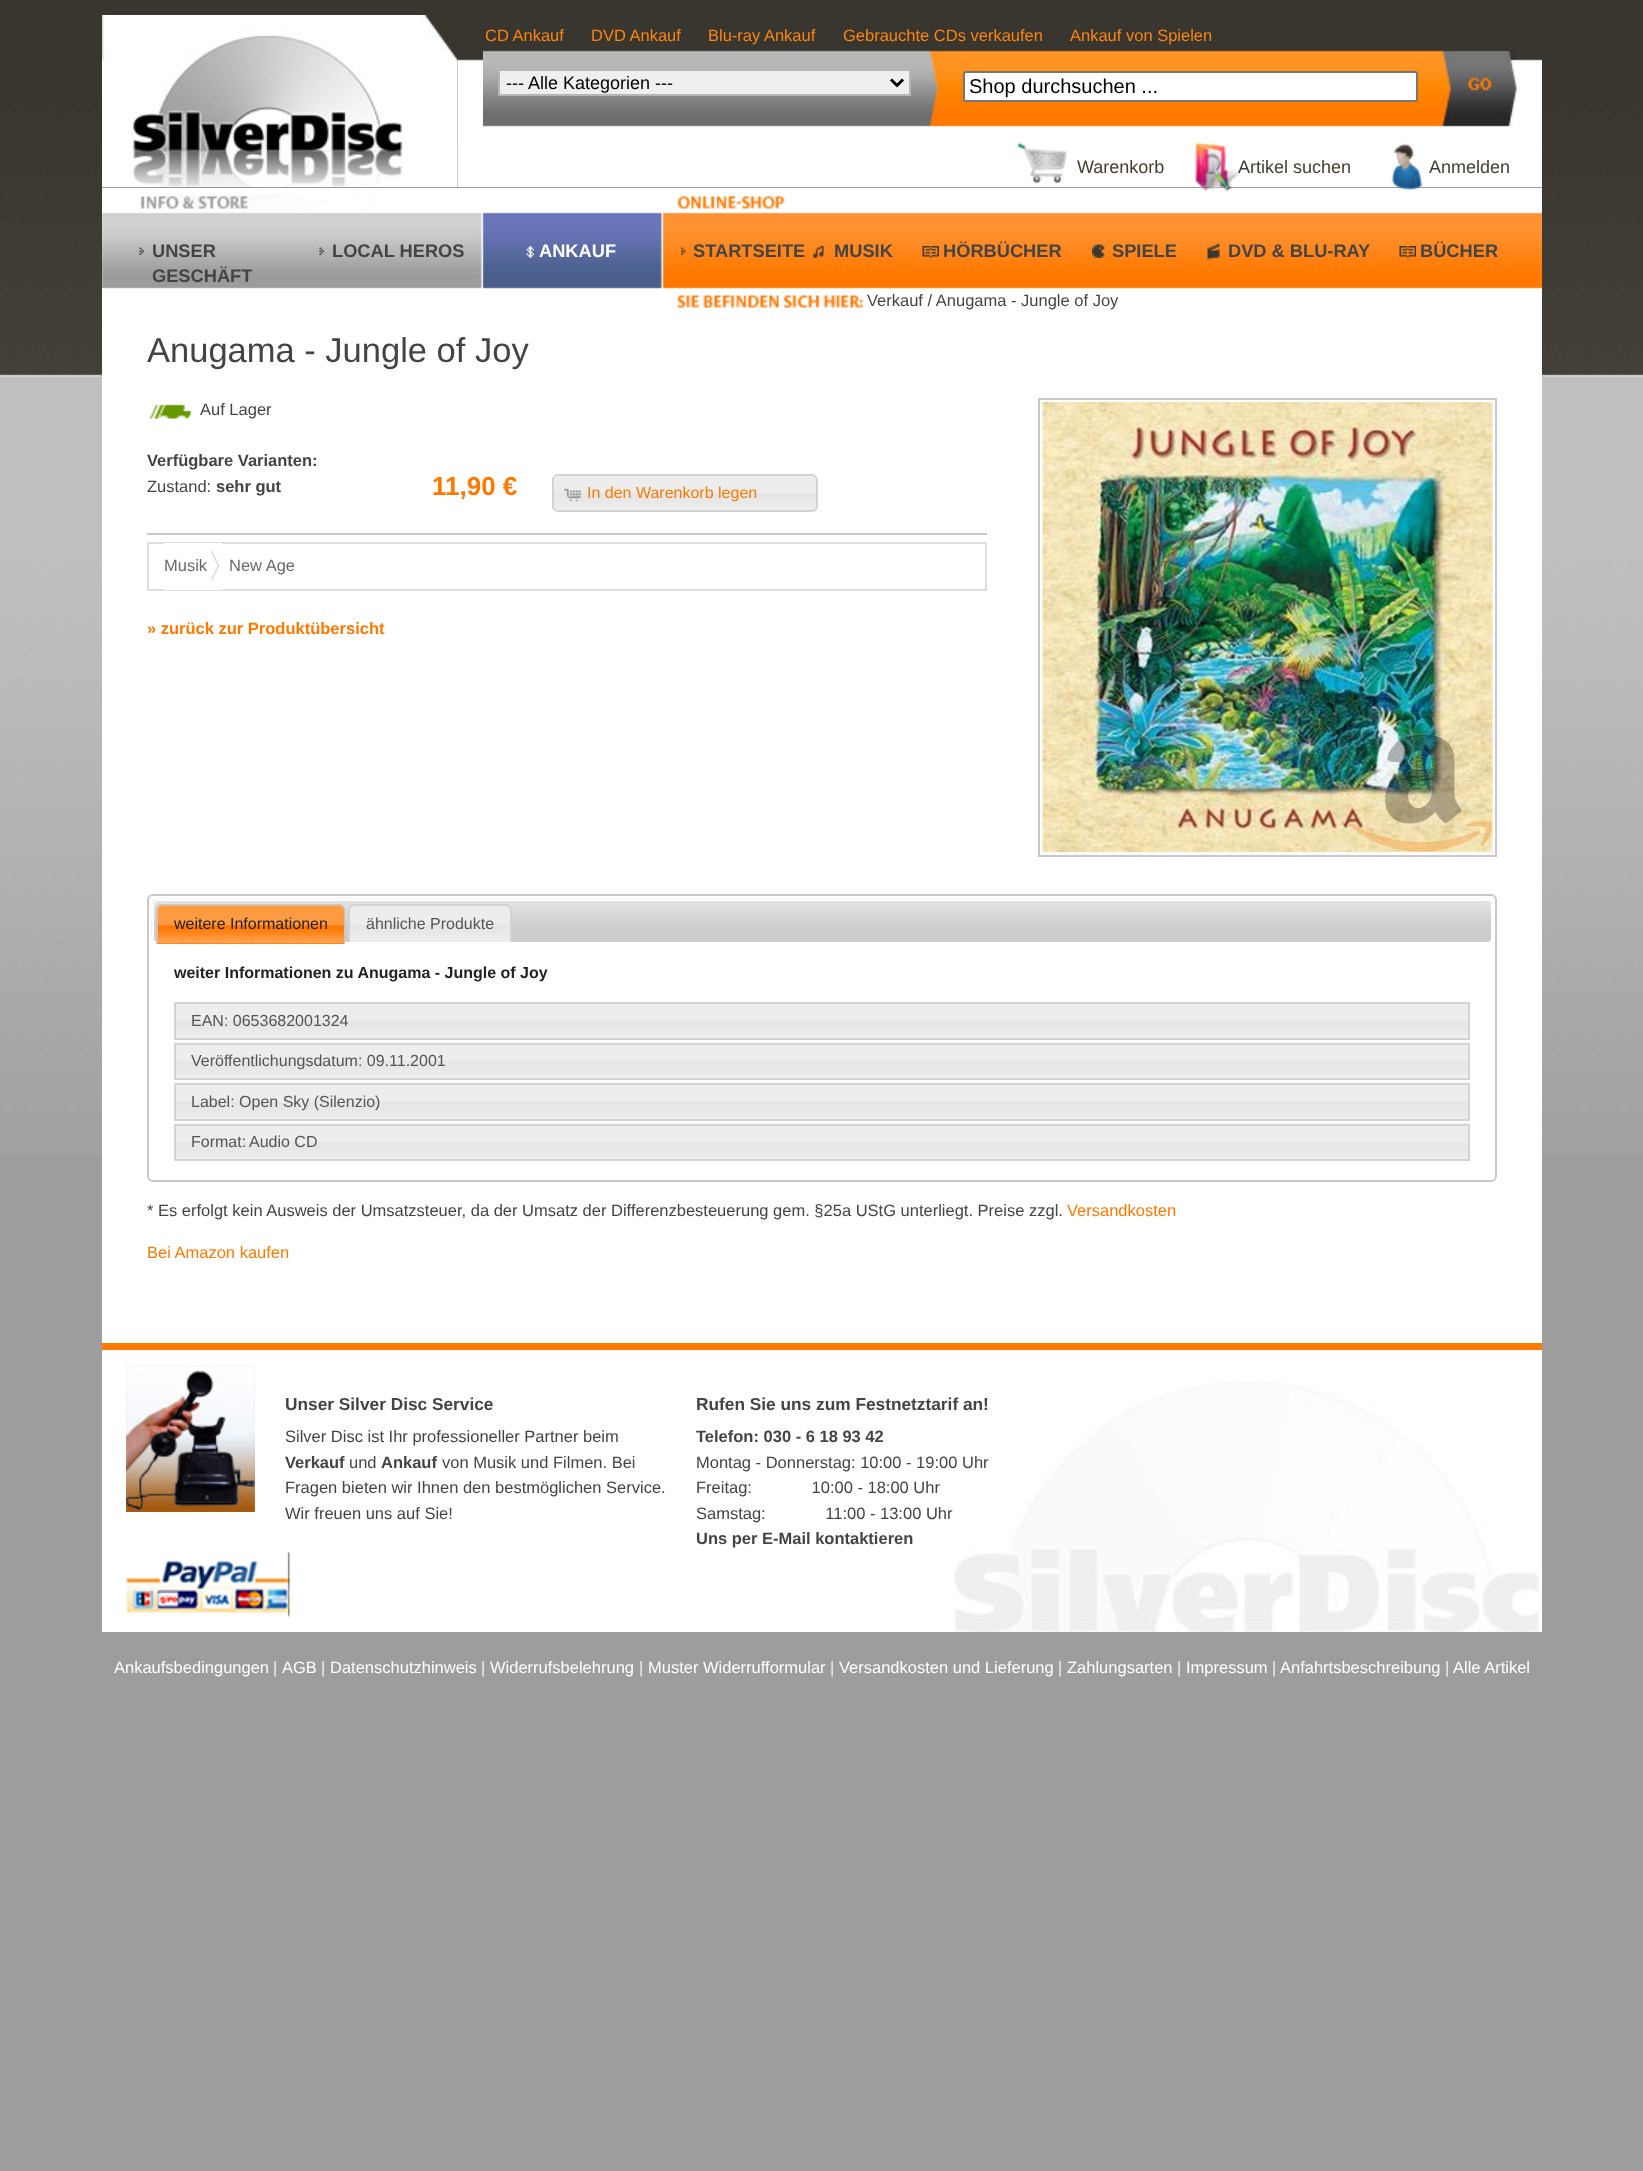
<!DOCTYPE html>
<meta charset="utf-8">
<style>body { margin: 0 } canvas { display: block }</style>
<canvas id="canvas" width="1643" height="2171"></canvas>
<script type="module">
  const canvas = document.getElementById("canvas");
  const ctx = canvas.getContext("2d");
  ctx.miterLimit = 4;
  ctx.fontKerning = "normal";
  async function loadImage(src) {
    const img = new Image();
    img.src = src;
    await img.decode();
    return img;
  }

  ctx.fillStyle = "#9d9d9d";
  ctx.fillRect(0, 0, 1643, 2171);
  ctx.drawImage(await loadImage("img1.png"), 0, 0, 1643, 1156);
  ctx.drawImage(await loadImage("img2.png"), 102, 15, 356, 173);
  ctx.font = "16.5px Liberation Sans";
  ctx.fillStyle = "#fc8510";
  ctx.fillText("CD Ankauf", 485, 41);
  ctx.fillText("DVD Ankauf", 591, 41);
  ctx.fillText("Blu-ray Ankauf", 708, 41);
  ctx.fillText("Gebrauchte CDs verkaufen", 843, 41);
  ctx.fillText("Ankauf von Spielen", 1070, 41);
  ctx.drawImage(await loadImage("img3.png"), 457, 58, 1085, 130);
  ctx.drawImage(await loadImage("img4.png"), 483, 50, 1034, 78);
  ctx.fillStyle = "#efefef";
  ctx.beginPath();
  ctx.rect(499, 70, 411, 25);
  ctx.fill();
  ctx.strokeStyle = "#b6b6b6";
  ctx.lineWidth = 2;
  ctx.stroke();
  ctx.beginPath();
  ctx.moveTo(891, 79.5);
  ctx.lineTo(897, 85.5);
  ctx.lineTo(903, 79.5);
  ctx.strokeStyle = "#000000";
  ctx.lineWidth = 3;
  ctx.stroke();
  ctx.font = "18px Liberation Sans";
  ctx.fillStyle = "#000000";
  ctx.fillText("--- Alle Kategorien ---", 506, 89);
  ctx.fillStyle = "#ffffff";
  ctx.beginPath();
  ctx.roundRect(964, 72, 453, 29, 2);
  ctx.fill();
  ctx.strokeStyle = "#767676";
  ctx.lineWidth = 2;
  ctx.stroke();
  ctx.font = "20px Liberation Sans";
  ctx.fillStyle = "#000000";
  ctx.fillText("Shop durchsuchen ...", 969, 93);
  ctx.drawImage(await loadImage("img5.png"), 1017, 142, 50, 41);
  ctx.font = "18px Liberation Sans";
  ctx.fillStyle = "#473c2d";
  ctx.fillText("Warenkorb", 1077, 173);
  ctx.fillStyle = "#ffffff";
  ctx.fillRect(102, 188, 1440, 1155);
  ctx.drawImage(await loadImage("img6.png"), 1195, 142, 45, 49);
  ctx.fillStyle = "#473c2d";
  ctx.fillText("Artikel suchen", 1238, 173);
  ctx.drawImage(await loadImage("img7.png"), 1391, 143, 32, 48);
  ctx.fillText("Anmelden", 1429, 173);
  ctx.drawImage(await loadImage("img8.png"), 102, 195, 1440, 113);
  ctx.font = "16.5px Liberation Sans";
  ctx.fillStyle = "#444444";
  ctx.fillText("Verkauf / Anugama - Jungle of Joy", 867, 306);
  ctx.drawImage(await loadImage("img9.png"), 139, 247, 5, 8);
  ctx.font = "bold 18.25px Liberation Sans";
  ctx.fillText("UNSER", 152, 257);
  ctx.fillText("GESCHÄFT", 152, 282);
  ctx.drawImage(await loadImage("img9.png"), 319, 247, 5, 8);
  ctx.fillText("LOCAL HEROS", 332, 257);
  ctx.drawImage(await loadImage("img10.png"), 526, 246, 8, 12);
  ctx.fillStyle = "#ffffff";
  ctx.fillText("ANKAUF", 539, 257);
  ctx.drawImage(await loadImage("img11.png"), 681, 247, 5, 8);
  ctx.fillStyle = "#444444";
  ctx.fillText("STARTSEITE", 693, 257);
  ctx.drawImage(await loadImage("img12.png"), 813, 246, 11, 12);
  ctx.fillText("MUSIK", 834, 257);
  ctx.drawImage(await loadImage("img13.png"), 922, 246, 17, 12);
  ctx.fillText("HÖRBÜCHER", 943, 257);
  ctx.drawImage(await loadImage("img14.png"), 1092, 244, 14, 14);
  ctx.fillText("SPIELE", 1112, 257);
  ctx.drawImage(await loadImage("img15.png"), 1207, 243, 13, 17);
  ctx.fillText("DVD & BLU-RAY", 1228, 257);
  ctx.drawImage(await loadImage("img16.png"), 1399, 246, 17, 12);
  ctx.fillText("BÜCHER", 1420, 257);
  ctx.font = "34.5px Liberation Sans";
  ctx.fillText("Anugama - Jungle of Joy", 147, 362);
  ctx.drawImage(await loadImage("img17.png"), 149, 404, 42, 15);
  ctx.font = "16.5px Liberation Sans";
  ctx.fillText("Auf Lager", 200, 415);
  ctx.font = "bold 16.5px Liberation Sans";
  ctx.fillText("Verfügbare Varianten:", 147, 466);
  ctx.fillStyle = "#c9c9c9";
  ctx.fillRect(147, 533, 840, 2);
  ctx.font = "16.5px Liberation Sans";
  ctx.fillStyle = "#444444";
  ctx.fillText("Zustand:", 147, 492);
  ctx.font = "bold 16.5px Liberation Sans";
  ctx.fillText("sehr gut", 216, 492);
  ctx.font = "bold 26px Liberation Sans";
  ctx.fillStyle = "#ff7800";
  ctx.fillText("11,90 €", 432, 495);
  ctx.drawImage(await loadImage("img18.png"), 552, 474, 265, 37);
  ctx.beginPath();
  ctx.roundRect(553, 475, 264, 36, 5);
  ctx.strokeStyle = "#d3d3d3";
  ctx.stroke();
  ctx.drawImage(await loadImage("img19.png"), 563, 488, 18, 14);
  ctx.font = "16px Liberation Sans";
  ctx.fillText("In den Warenkorb legen", 587, 498);
  ctx.strokeStyle = "#dedede";
  ctx.strokeRect(148, 543, 838, 47);
  ctx.fillStyle = "#ffffff";
  ctx.fillRect(164, 543, 58, 47);
  ctx.drawImage(await loadImage("img20.png"), 210, 550, 10, 31);
  ctx.font = "16.5px Liberation Sans";
  ctx.fillStyle = "#696969";
  ctx.fillText("Musik", 164, 571);
  ctx.fillText("New Age", 229, 571);
  ctx.font = "bold 16.5px Liberation Sans";
  ctx.fillStyle = "#ff7800";
  ctx.fillText("» zurück zur Produktübersicht", 147, 634);
  ctx.strokeStyle = "#c9c9c9";
  ctx.strokeRect(1039, 399, 457, 457);
  ctx.drawImage(await loadImage("img21.png"), 1042, 402, 451, 450);
  ctx.beginPath();
  ctx.roundRect(148, 895, 1348, 286, 5);
  ctx.stroke();
  ctx.drawImage(await loadImage("img22.png"), 151, 898, 1342, 45);
  ctx.beginPath();
  ctx.roundRect(153, 900, 1339, 43, 5);
  ctx.strokeStyle = "#ffffff";
  ctx.stroke();
  ctx.beginPath();
  ctx.roundRect(156, 905, 189, 39, [6, 6, 0, 0]);
  ctx.fill();
  ctx.drawImage(await loadImage("img23.png"), 156, 904, 189, 40);
  ctx.fillStyle = "#d5bfaf";
  ctx.beginPath();
  ctx.moveTo(162, 904);
  ctx.lineTo(339, 904);
  ctx.bezierCurveTo(342, 904, 345, 907, 345, 910);
  ctx.lineTo(345, 944);
  ctx.lineTo(156, 944);
  ctx.lineTo(156, 910);
  ctx.bezierCurveTo(156, 907, 159, 904, 162, 904);
  ctx.closePath();
  ctx.moveTo(162, 906);
  ctx.lineTo(339, 906);
  ctx.bezierCurveTo(341, 906, 344, 908, 344, 910);
  ctx.lineTo(344, 944);
  ctx.lineTo(158, 944);
  ctx.lineTo(158, 910);
  ctx.bezierCurveTo(158, 908, 160, 906, 162, 906);
  ctx.closePath();
  ctx.fill("evenodd");
  ctx.font = "16px Liberation Sans";
  ctx.fillStyle = "#222222";
  ctx.fillText("weitere Informationen", 174, 929);
  ctx.drawImage(await loadImage("img24.png"), 348, 904, 163, 38);
  ctx.fillStyle = "#d3d3d3";
  ctx.beginPath();
  ctx.moveTo(354, 904);
  ctx.lineTo(506, 904);
  ctx.bezierCurveTo(509, 904, 512, 907, 512, 910);
  ctx.lineTo(512, 942);
  ctx.lineTo(348, 942);
  ctx.lineTo(348, 910);
  ctx.bezierCurveTo(348, 907, 351, 904, 354, 904);
  ctx.closePath();
  ctx.moveTo(354, 906);
  ctx.lineTo(506, 906);
  ctx.bezierCurveTo(508, 906, 510, 908, 510, 910);
  ctx.lineTo(510, 942);
  ctx.lineTo(350, 942);
  ctx.lineTo(350, 910);
  ctx.bezierCurveTo(350, 908, 352, 906, 354, 906);
  ctx.closePath();
  ctx.fill("evenodd");
  ctx.fillStyle = "#555555";
  ctx.fillText("ähnliche Produkte", 366, 929);
  ctx.font = "bold 16px Liberation Sans";
  ctx.fillStyle = "#222222";
  ctx.fillText("weiter Informationen zu Anugama - Jungle of Joy", 174, 978);
  ctx.drawImage(await loadImage("img25.png"), 176, 1004, 1292, 34);
  ctx.strokeStyle = "#d3d3d3";
  ctx.strokeRect(175, 1003, 1294, 36);
  ctx.font = "16px Liberation Sans";
  ctx.fillStyle = "#555555";
  ctx.fillText("EAN: 0653682001324", 191, 1026);
  ctx.drawImage(await loadImage("img26.png"), 174, 1042, 1296, 36);
  ctx.strokeRect(175, 1044, 1294, 35);
  ctx.fillText("Veröffentlichungsdatum: 09.11.2001", 191, 1066);
  ctx.drawImage(await loadImage("img25.png"), 176, 1085, 1292, 34);
  ctx.strokeRect(175, 1084, 1294, 36);
  ctx.fillText("Label: Open Sky (Silenzio)", 191, 1107);
  ctx.drawImage(await loadImage("img26.png"), 174, 1123, 1296, 36);
  ctx.strokeRect(175, 1125, 1294, 35);
  ctx.fillText("Format:", 191, 1147);
  ctx.fillText("Audio CD", 249, 1147);
  ctx.font = "16.5px Liberation Sans";
  ctx.fillStyle = "#444444";
  ctx.fillText("* Es erfolgt kein Ausweis der Umsatzsteuer, da der Umsatz der Differenzbesteuerung gem. §25a UStG unterliegt. Preise zzgl.", 147, 1216);
  ctx.fillStyle = "#ff7800";
  ctx.fillText("Versandkosten", 1067, 1216);
  ctx.fillText("Bei Amazon kaufen", 147, 1258);
  ctx.fillRect(102, 1343, 1440, 7);
  ctx.fillStyle = "#ffffff";
  ctx.fillRect(102, 1350, 1440, 282);
  ctx.drawImage(await loadImage("img27.png"), 954, 1382, 585, 250);
  ctx.drawImage(await loadImage("img28.png"), 126, 1365, 129, 147);
  ctx.font = "bold 17.3px Liberation Sans";
  ctx.fillStyle = "#444444";
  ctx.fillText("Unser Silver Disc Service", 285, 1410);
  ctx.font = "16.5px Liberation Sans";
  ctx.fillText("Silver Disc ist Ihr professioneller Partner beim", 285, 1442);
  ctx.font = "bold 16.5px Liberation Sans";
  ctx.fillText("Verkauf", 285, 1468);
  ctx.font = "16.5px Liberation Sans";
  ctx.fillText("und", 349, 1468);
  ctx.font = "bold 16.5px Liberation Sans";
  ctx.fillText("Ankauf", 381, 1468);
  ctx.font = "16.5px Liberation Sans";
  ctx.fillText("von Musik und Filmen. Bei", 442, 1468);
  ctx.fillText("Fragen bieten wir Ihnen den bestmöglichen Service.", 285, 1493);
  ctx.fillText("Wir freuen uns auf Sie!", 285, 1519);
  ctx.font = "bold 17.3px Liberation Sans";
  ctx.fillText("Rufen Sie uns zum Festnetztarif an!", 696, 1410);
  ctx.font = "bold 16.5px Liberation Sans";
  ctx.fillText("Telefon: 030 - 6 18 93 42", 696, 1442);
  ctx.font = "16.5px Liberation Sans";
  ctx.fillText("Montag - Donnerstag: 10:00 - 19:00 Uhr", 696, 1468);
  ctx.fillText("Freitag:             10:00 - 18:00 Uhr", 696, 1493);
  ctx.fillText("Samstag:             11:00 - 13:00 Uhr", 696, 1519);
  ctx.font = "bold 16.5px Liberation Sans";
  ctx.fillText("Uns per E-Mail kontaktieren", 696, 1544);
  ctx.drawImage(await loadImage("img29.png"), 126, 1552, 164, 65);
  ctx.font = "16.5px Liberation Sans";
  ctx.fillStyle = "#ffffff";
  ctx.fillText("Ankaufsbedingungen", 114, 1673);
  ctx.fillStyle = "#eeeeee";
  ctx.fillText("|", 273, 1673);
  ctx.fillStyle = "#ffffff";
  ctx.fillText("AGB", 282, 1673);
  ctx.fillStyle = "#eeeeee";
  ctx.fillText("|", 321, 1673);
  ctx.fillStyle = "#ffffff";
  ctx.fillText("Datenschutzhinweis", 330, 1673);
  ctx.fillStyle = "#eeeeee";
  ctx.fillText("|", 481, 1673);
  ctx.fillStyle = "#ffffff";
  ctx.fillText("Widerrufsbelehrung", 490, 1673);
  ctx.fillStyle = "#eeeeee";
  ctx.fillText("|", 639, 1673);
  ctx.fillStyle = "#ffffff";
  ctx.fillText("Muster Widerrufformular", 648, 1673);
  ctx.fillStyle = "#eeeeee";
  ctx.fillText("|", 830, 1673);
  ctx.fillStyle = "#ffffff";
  ctx.fillText("Versandkosten und Lieferung", 839, 1673);
  ctx.fillStyle = "#eeeeee";
  ctx.fillText("|", 1058, 1673);
  ctx.fillStyle = "#ffffff";
  ctx.fillText("Zahlungsarten", 1067, 1673);
  ctx.fillStyle = "#eeeeee";
  ctx.fillText("|", 1177, 1673);
  ctx.fillStyle = "#ffffff";
  ctx.fillText("Impressum", 1186, 1673);
  ctx.fillStyle = "#eeeeee";
  ctx.fillText("|", 1272, 1673);
  ctx.fillStyle = "#ffffff";
  ctx.fillText("Anfahrtsbeschreibung", 1280, 1673);
  ctx.fillStyle = "#eeeeee";
  ctx.fillText("|", 1445, 1673);
  ctx.fillStyle = "#ffffff";
  ctx.fillText("Alle Artikel", 1453, 1673);
</script>
